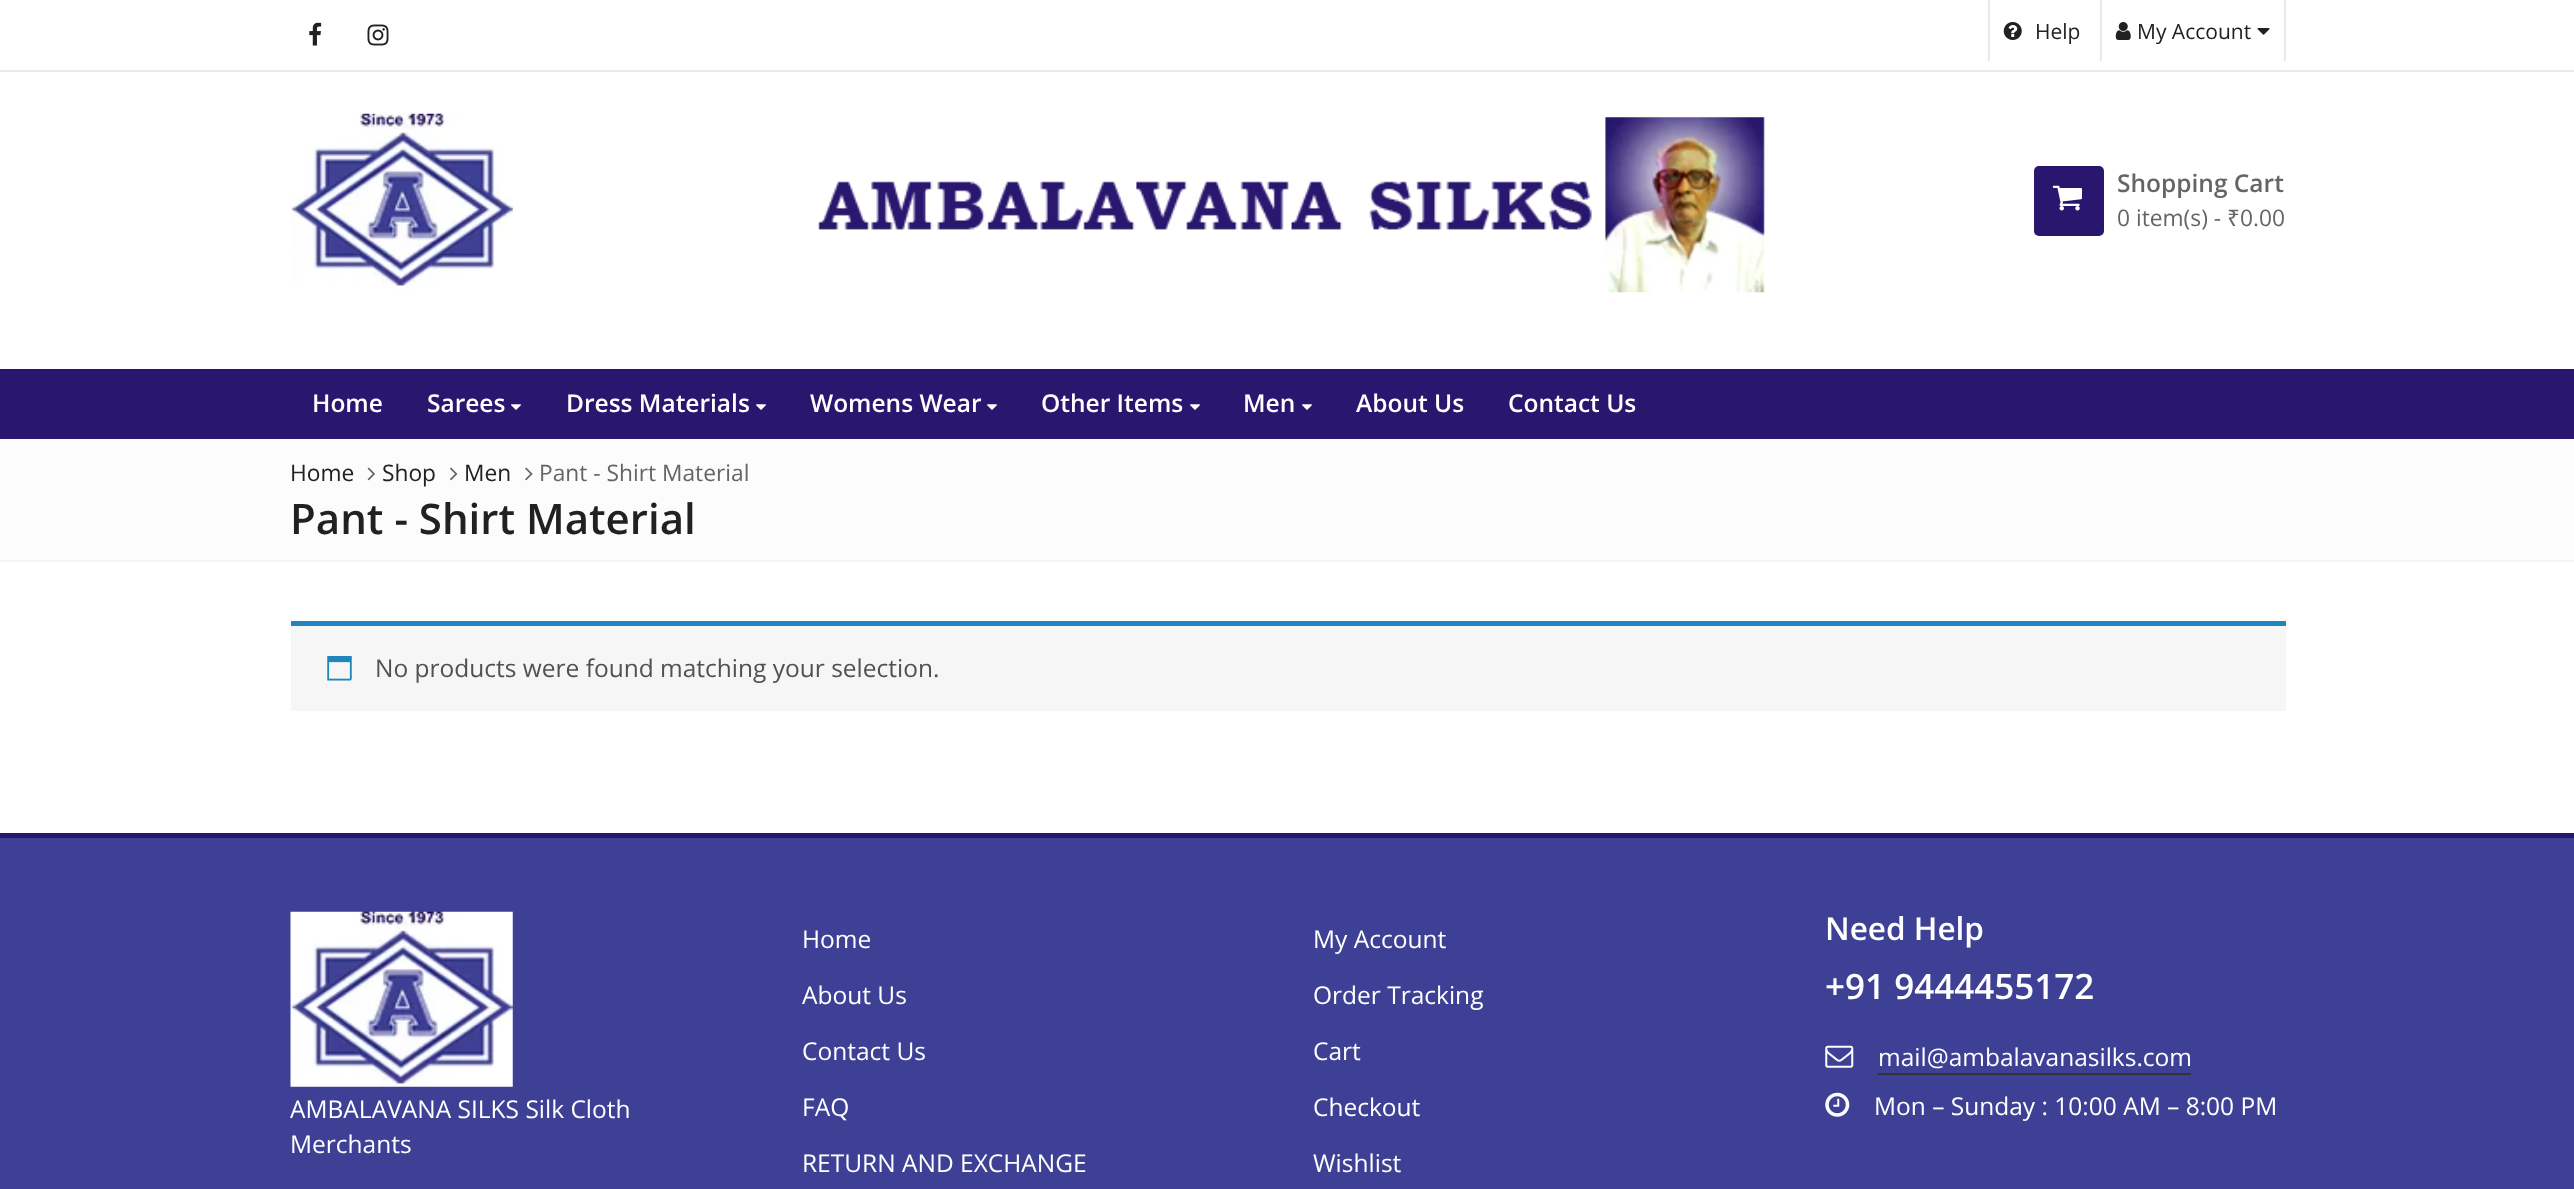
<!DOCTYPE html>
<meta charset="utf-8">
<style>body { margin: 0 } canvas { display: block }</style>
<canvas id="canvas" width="2574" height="1189"></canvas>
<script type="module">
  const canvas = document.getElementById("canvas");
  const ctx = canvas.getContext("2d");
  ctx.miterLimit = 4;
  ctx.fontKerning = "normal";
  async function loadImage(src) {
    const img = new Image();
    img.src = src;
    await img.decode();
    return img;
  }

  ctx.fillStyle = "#ffffff";
  ctx.fillRect(0, 0, 2574, 1189);
  ctx.fillStyle = "#e9e9e9";
  ctx.fillRect(0, 70, 2574, 2);
  ctx.drawImage(await loadImage("img1.png"), 309, 22, 13, 24);
  ctx.drawImage(await loadImage("img2.png"), 367, 24, 22, 22);
  ctx.fillRect(1988, 0, 2, 61);
  ctx.drawImage(await loadImage("img3.png"), 2003, 22, 19, 18);
  ctx.font = "21px Open Sans";
  ctx.fillStyle = "#212121";
  ctx.fillText("Help", 2035, 39);
  ctx.fillStyle = "#e9e9e9";
  ctx.fillRect(2284, 0, 2, 61);
  ctx.fillRect(2100, 0, 2, 61);
  ctx.drawImage(await loadImage("img4.png"), 2115, 22, 16, 18);
  ctx.fillStyle = "#212121";
  ctx.fillText("My Account", 2137, 39);
  ctx.drawImage(await loadImage("img5.png"), 2257, 28, 13, 7);
  ctx.drawImage(await loadImage("img6.png"), 291, 113, 222, 176);
  ctx.drawImage(await loadImage("img7.png"), 818, 117, 947, 176);
  ctx.fillStyle = "#29166f";
  ctx.beginPath();
  ctx.roundRect(2034, 166, 70, 70, 5);
  ctx.fill();
  ctx.drawImage(await loadImage("img8.png"), 2052, 185, 30, 26);
  ctx.font = "600 24.5px Open Sans";
  ctx.fillStyle = "#656565";
  ctx.fillText("Shopping Cart", 2117, 192);
  ctx.font = "22.75px Open Sans";
  ctx.fillText("0 item(s) -", 2117, 226);
  ctx.font = "22.75px Noto Sans";
  ctx.fillText("₹", 2227, 226);
  ctx.font = "22.75px Open Sans";
  ctx.fillText("0.00", 2240, 226);
  ctx.fillStyle = "#29166f";
  ctx.fillRect(0, 369, 2574, 70);
  ctx.font = "600 24.5px Open Sans";
  ctx.fillStyle = "#ffffff";
  ctx.fillText("Home", 312, 412);
  ctx.fillText("Sarees", 427, 412);
  ctx.drawImage(await loadImage("img9.png"), 511, 404, 10, 6);
  ctx.fillText("Dress Materials", 566, 412);
  ctx.drawImage(await loadImage("img9.png"), 756, 404, 10, 6);
  ctx.fillText("Womens Wear", 810, 412);
  ctx.drawImage(await loadImage("img9.png"), 987, 404, 10, 6);
  ctx.fillText("Other Items", 1041, 412);
  ctx.drawImage(await loadImage("img9.png"), 1190, 404, 10, 6);
  ctx.fillText("Men", 1243, 412);
  ctx.drawImage(await loadImage("img9.png"), 1302, 404, 10, 6);
  ctx.fillText("About Us", 1356, 412);
  ctx.fillText("Contact Us", 1508, 412);
  ctx.fillStyle = "#fcfcfc";
  ctx.fillRect(0, 439, 2574, 121);
  ctx.fillStyle = "#f5f5f5";
  ctx.fillRect(0, 560, 2574, 2);
  ctx.font = "22.75px Open Sans";
  ctx.fillStyle = "#212121";
  ctx.fillText("Home", 290, 481);
  ctx.drawImage(await loadImage("img10.png"), 367, 467, 8, 14);
  ctx.fillText("Shop", 382, 481);
  ctx.drawImage(await loadImage("img11.png"), 450, 467, 8, 14);
  ctx.fillText("Men", 464, 481);
  ctx.drawImage(await loadImage("img12.png"), 525, 467, 8, 14);
  ctx.fillStyle = "#656565";
  ctx.fillText("Pant - Shirt Material", 539, 481);
  ctx.font = "600 42px Open Sans";
  ctx.fillStyle = "#212121";
  ctx.fillText("Pant - Shirt Material", 290, 534);
  ctx.fillStyle = "#f7f6f7";
  ctx.fillRect(291, 626, 1995, 85);
  ctx.fillStyle = "#1e85be";
  ctx.fillRect(291, 621, 1995, 5);
  ctx.drawImage(await loadImage("img13.png"), 327, 656, 25, 25);
  ctx.font = "24.5px Open Sans";
  ctx.fillStyle = "#515151";
  ctx.fillText("No products were found matching your selection.", 375, 677);
  ctx.fillStyle = "#29166f";
  ctx.fillRect(0, 833, 2574, 5);
  ctx.fillStyle = "#3e4095";
  ctx.fillRect(0, 838, 2574, 351);
  ctx.drawImage(await loadImage("img14.png"), 290, 911, 223, 176);
  ctx.fillStyle = "#ffffff";
  ctx.fillText("AMBALAVANA SILKS Silk Cloth", 290, 1118);
  ctx.fillText("Merchants", 290, 1153);
  ctx.fillText("Home", 802, 948);
  ctx.fillText("About Us", 802, 1004);
  ctx.fillText("Contact Us", 802, 1060);
  ctx.fillText("FAQ", 802, 1116);
  ctx.fillText("RETURN AND EXCHANGE", 802, 1172);
  ctx.fillText("My Account", 1313, 948);
  ctx.fillText("Order Tracking", 1313, 1004);
  ctx.fillText("Cart", 1313, 1060);
  ctx.fillText("Checkout", 1313, 1116);
  ctx.fillText("Wishlist", 1313, 1172);
  ctx.font = "600 31.5px Open Sans";
  ctx.fillText("Need Help", 1825, 940);
  ctx.font = "600 35px Open Sans";
  ctx.fillText("+91 9444455172", 1825, 999);
  ctx.drawImage(await loadImage("img15.png"), 1825, 1045, 29, 23);
  ctx.font = "24.5px Open Sans";
  ctx.fillText("mail@ambalavanasilks.com", 1878, 1066);
  ctx.fillStyle = "#333333";
  ctx.fillRect(1878, 1073, 313, 2);
  ctx.drawImage(await loadImage("img16.png"), 1825, 1092, 25, 25);
  ctx.fillStyle = "#ffffff";
  ctx.fillText("Mon – Sunday : 10:00 AM – 8:00 PM", 1874, 1115);
</script>
